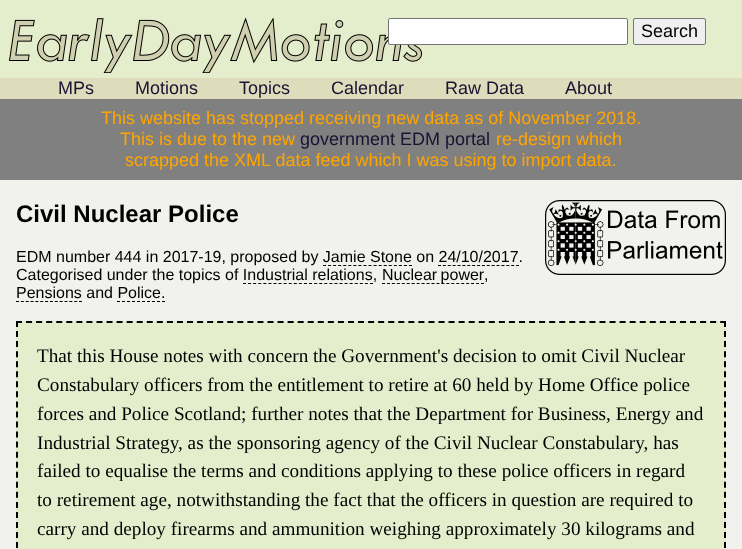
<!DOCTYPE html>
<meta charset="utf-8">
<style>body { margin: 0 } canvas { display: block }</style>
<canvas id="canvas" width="742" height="549"></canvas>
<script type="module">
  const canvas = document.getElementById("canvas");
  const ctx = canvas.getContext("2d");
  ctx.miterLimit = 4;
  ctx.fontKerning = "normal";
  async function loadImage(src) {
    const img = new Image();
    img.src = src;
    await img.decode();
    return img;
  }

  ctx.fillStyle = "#f1f1ed";
  ctx.fillRect(0, 0, 742, 549);
  ctx.fillStyle = "#e5eecc";
  ctx.fillRect(0, 0, 742, 78);
  ctx.drawImage(await loadImage("img1.png"), 9, 18, 414, 55);
  ctx.fillStyle = "#ffffff";
  ctx.beginPath();
  ctx.roundRect(388.5, 18.5, 239, 26, 1.5);
  ctx.fill();
  ctx.strokeStyle = "#767676";
  ctx.stroke();
  ctx.fillStyle = "#efefef";
  ctx.beginPath();
  ctx.roundRect(633.5, 18.5, 72, 26, 1.5);
  ctx.fill();
  ctx.stroke();
  ctx.font = "18px Liberation Sans";
  ctx.fillStyle = "#000000";
  ctx.fillText("Search", 641, 37);
  ctx.fillStyle = "#ddddbb";
  ctx.fillRect(0, 78, 742, 21);
  ctx.fillStyle = "#1a1133";
  ctx.fillText("MPs", 58, 94);
  ctx.fillText("Motions", 135, 94);
  ctx.fillText("Topics", 239, 94);
  ctx.fillText("Calendar", 331, 94);
  ctx.fillText("Raw Data", 445, 94);
  ctx.fillText("About", 565, 94);
  ctx.fillStyle = "#808080";
  ctx.fillRect(0, 99, 742, 81);
  ctx.fillStyle = "#ffa500";
  ctx.fillText("This website has stopped receiving new data as of November 2018.", 101, 124);
  ctx.fillText("This is due to the new", 120, 145);
  ctx.fillStyle = "#1a1133";
  ctx.fillText("government EDM portal", 300, 145);
  ctx.fillStyle = "#ffa500";
  ctx.fillText("re-design which", 496, 145);
  ctx.fillText("scrapped the XML data feed which I was using to import data.", 125, 166);
  ctx.font = "bold 24px Liberation Sans";
  ctx.fillStyle = "#000000";
  ctx.fillText("Civil Nuclear Police", 16, 222);
  ctx.drawImage(await loadImage("img2.png"), 545, 200, 181, 75);
  ctx.font = "16px Liberation Sans";
  ctx.fillText("EDM number 444 in 2017-19, proposed by Jamie Stone on 24/10/2017.", 16, 262);
  ctx.beginPath();
  ctx.moveTo(323, 265.5);
  ctx.lineTo(412, 265.5);
  ctx.strokeStyle = "#000000";
  ctx.setLineDash([3, 2.06]);
  ctx.stroke();
  ctx.beginPath();
  ctx.moveTo(438, 265.5);
  ctx.lineTo(519, 265.5);
  ctx.setLineDash([3, 1.88]);
  ctx.stroke();
  ctx.fillText("Categorised under the topics of Industrial relations,", 16, 280);
  ctx.beginPath();
  ctx.moveTo(382, 283.5);
  ctx.lineTo(484, 283.5);
  ctx.setLineDash([3, 1.95]);
  ctx.stroke();
  ctx.wordSpacing = "-1px";
  ctx.fillText("Nuclear power", 382, 280);
  ctx.wordSpacing = "0px";
  ctx.fillText(",", 484, 280);
  ctx.beginPath();
  ctx.moveTo(243, 283.5);
  ctx.lineTo(373, 283.5);
  ctx.setLineDash([3, 2.08]);
  ctx.stroke();
  ctx.fillText("Pensions and Police.", 16, 298);
  ctx.beginPath();
  ctx.moveTo(16, 301.5);
  ctx.lineTo(82, 301.5);
  ctx.setLineDash([3, 1.85]);
  ctx.stroke();
  ctx.beginPath();
  ctx.moveTo(117, 301.5);
  ctx.lineTo(165, 301.5);
  ctx.setLineDash([3, 2]);
  ctx.stroke();
  ctx.fillStyle = "#e5eecc";
  ctx.fillRect(16, 321, 710, 228);
  ctx.beginPath();
  ctx.moveTo(16, 322);
  ctx.lineTo(726, 322);
  ctx.lineWidth = 2;
  ctx.setLineDash([6, 4.06]);
  ctx.stroke();
  ctx.beginPath();
  ctx.moveTo(725, 321);
  ctx.lineTo(725, 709);
  ctx.setLineDash([6, 4.05]);
  ctx.stroke();
  ctx.beginPath();
  ctx.moveTo(17, 321);
  ctx.lineTo(17, 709);
  ctx.stroke();
  ctx.font = "19.2px Liberation Serif";
  ctx.fillStyle = "#000000";
  ctx.fillText("That this House notes with concern the Government's decision to omit Civil Nuclear", 37, 362);
  ctx.fillText("Constabulary officers from the entitlement to retire at 60 held by Home Office police", 37, 391);
  ctx.fillText("forces and Police Scotland; further notes that the Department for Business, Energy and", 37, 420);
  ctx.fillText("Industrial Strategy, as the sponsoring agency of the Civil Nuclear Constabulary, has", 37, 449);
  ctx.fillText("failed to equalise the terms and conditions applying to these police officers in regard", 37, 477);
  ctx.fillText("to retirement age, notwithstanding the fact that the officers in question are required to", 37, 506);
  ctx.fillText("carry and deploy firearms and ammunition weighing approximately 30 kilograms and", 37, 535);
</script>
